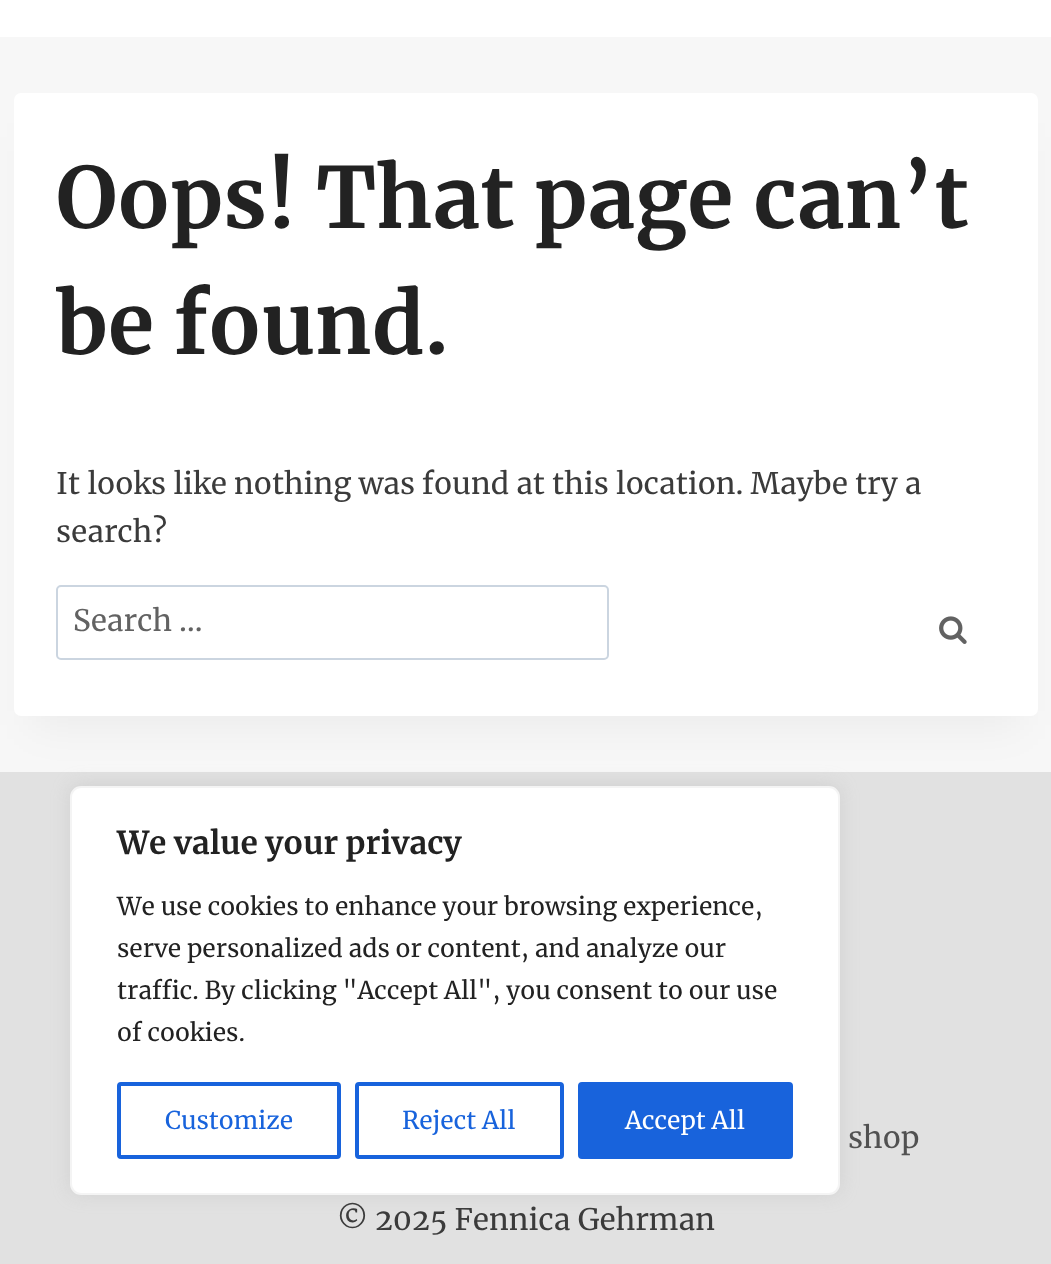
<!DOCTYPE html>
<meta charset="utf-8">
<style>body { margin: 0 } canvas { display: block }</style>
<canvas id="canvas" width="1051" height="1264"></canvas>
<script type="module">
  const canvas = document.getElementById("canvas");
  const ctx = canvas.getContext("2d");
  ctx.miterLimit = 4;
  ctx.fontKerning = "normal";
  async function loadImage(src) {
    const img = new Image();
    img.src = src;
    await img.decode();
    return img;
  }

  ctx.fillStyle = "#f7f7f7";
  ctx.fillRect(0, 0, 1051, 1264);
  ctx.fillStyle = "#ffffff";
  ctx.fillRect(0, 0, 1051, 37);
  ctx.fillStyle = "#e1e1e1";
  ctx.fillRect(0, 772, 1051, 492);
  ctx.fillStyle = "rgba(0, 0, 0, 0.05)";
  ctx.filter = "blur(22px)";
  ctx.beginPath();
  ctx.rect(32, 137, 988, 588);
  ctx.fill();
  ctx.filter = "none";
  ctx.fillStyle = "#ffffff";
  ctx.beginPath();
  ctx.roundRect(14, 93, 1024, 623, 7);
  ctx.fill();
  ctx.font = "bold 84px Merriweather";
  ctx.fillStyle = "#222222";
  ctx.fillText("Oops! That page can’t", 56, 228);
  ctx.fillText("be found.", 56, 354);
  ctx.font = "29.75px Merriweather";
  ctx.fillStyle = "#3b3b3b";
  ctx.fillText("It looks like nothing was found at this location. Maybe try a", 56, 494);
  ctx.fillText("search?", 56, 542);
  ctx.beginPath();
  ctx.roundRect(57, 586, 551, 73, 4);
  ctx.strokeStyle = "#cbd5e0";
  ctx.lineWidth = 2;
  ctx.stroke();
  ctx.fillStyle = "#626262";
  ctx.fillText("Search …", 73, 631);
  ctx.drawImage(await loadImage("img1.png"), 939, 616, 28, 28);
  ctx.fillStyle = "#515151";
  ctx.fillText("shop", 848, 1148);
  ctx.fillStyle = "#3b3b3b";
  ctx.fillText("© 2025 Fennica Gehrman", 337, 1230);
  ctx.fillStyle = "rgba(172, 171, 171, 0.3)";
  ctx.filter = "blur(9px)";
  ctx.beginPath();
  ctx.roundRect(70, 784, 770, 410, 11);
  ctx.fill();
  ctx.filter = "none";
  ctx.fillStyle = "#ffffff";
  ctx.beginPath();
  ctx.roundRect(71, 787, 768, 407, 10);
  ctx.fill();
  ctx.strokeStyle = "#f4f4f4";
  ctx.stroke();
  ctx.font = "bold 31.5px Merriweather";
  ctx.fillStyle = "#222222";
  ctx.fillText("We value your privacy", 117, 854);
  ctx.font = "24.5px Merriweather";
  ctx.fillText("We use cookies to enhance your browsing experience,", 117, 915);
  ctx.fillText("serve personalized ads or content, and analyze our", 117, 957);
  ctx.fillText("traffic. By clicking \"Accept All\", you consent to our use", 117, 999);
  ctx.fillText("of cookies.", 117, 1041);
  ctx.beginPath();
  ctx.roundRect(119, 1084, 220, 73, 2);
  ctx.strokeStyle = "#1863dc";
  ctx.lineWidth = 4;
  ctx.stroke();
  ctx.fillStyle = "#1863dc";
  ctx.fillText("Customize", 165, 1129);
  ctx.beginPath();
  ctx.roundRect(357, 1084, 205, 73, 2);
  ctx.stroke();
  ctx.fillText("Reject All", 402, 1129);
  ctx.beginPath();
  ctx.roundRect(580, 1084, 211, 73, 2);
  ctx.fill();
  ctx.stroke();
  ctx.fillStyle = "#ffffff";
  ctx.fillText("Accept All", 625, 1129);
</script>
